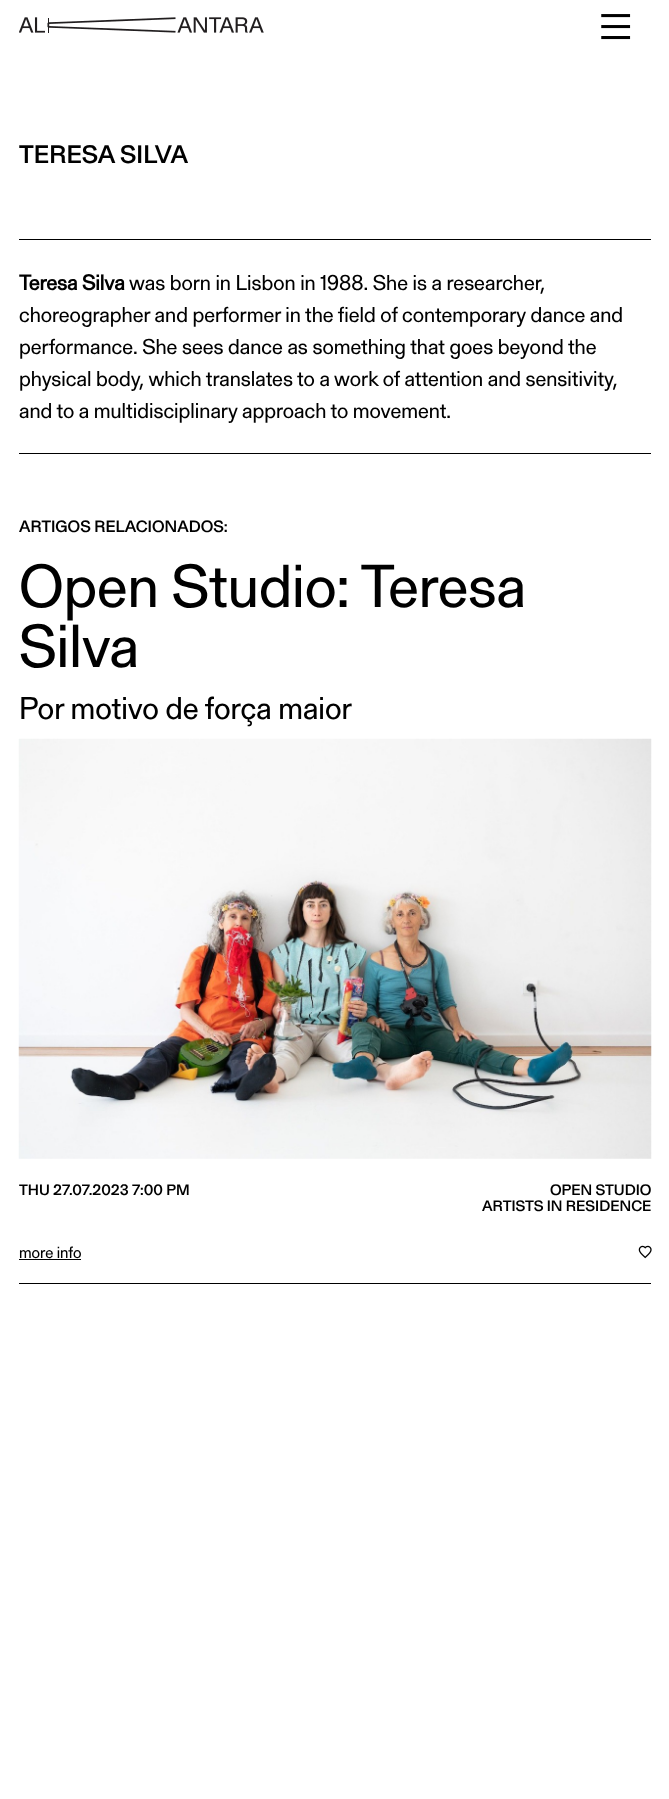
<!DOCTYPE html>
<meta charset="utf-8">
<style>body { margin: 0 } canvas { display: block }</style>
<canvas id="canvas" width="669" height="1799"></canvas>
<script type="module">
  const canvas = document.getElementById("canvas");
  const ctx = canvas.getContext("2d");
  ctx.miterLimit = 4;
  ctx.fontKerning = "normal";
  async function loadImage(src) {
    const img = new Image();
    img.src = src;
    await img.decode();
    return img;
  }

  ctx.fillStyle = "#ffffff";
  ctx.fillRect(0, 0, 669, 1799);
  ctx.drawImage(await loadImage("img1.png"), 19, 17, 245, 16);
  ctx.drawImage(await loadImage("img2.png"), 601, 14, 30, 26);
  ctx.font = "500 25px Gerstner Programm";
  ctx.fillStyle = "#000000";
  ctx.fillText("TERESA SILVA", 19, 163);
  ctx.fillRect(19, 239, 632, 1);
  ctx.fillRect(19, 453, 632, 1);
  ctx.font = "bold 21.25px Gerstner Programm";
  ctx.fillText("Teresa Silva", 19, 290);
  ctx.font = "21.25px Gerstner Programm";
  ctx.fillText("was born in Lisbon in 1988. She is a researcher,", 129, 290);
  ctx.fillText("choreographer and performer in the field of contemporary dance and", 19, 322);
  ctx.fillText("performance. She sees dance as something that goes beyond the", 19, 354);
  ctx.fillText("physical body, which translates to a work of attention and sensitivity,", 19, 386);
  ctx.fillText("and to a multidisciplinary approach to movement.", 19, 418);
  ctx.font = "500 16.25px Gerstner Programm";
  ctx.fillText("ARTIGOS RELACIONADOS:", 19, 532);
  ctx.font = "60px Gerstner Programm";
  ctx.fillText("Open Studio: Teresa", 19, 607);
  ctx.fillText("Silva", 19, 667);
  ctx.font = "31.25px Gerstner Programm";
  ctx.fillText("Por motivo de força maior", 19, 719);
  ctx.drawImage(await loadImage("img3.png"), 18, 738, 634, 421);
  ctx.font = "500 15px Gerstner Programm";
  ctx.fillText("THU 27.07.2023 7:00 PM", 19, 1195);
  ctx.fillText("OPEN STUDIO", 550, 1195);
  ctx.fillText("ARTISTS IN RESIDENCE", 482, 1211);
  ctx.font = "16px Gerstner Programm";
  ctx.fillText("more info", 19, 1258);
  ctx.fillRect(19, 1259, 62, 1);
  ctx.drawImage(await loadImage("img4.png"), 638, 1245, 14, 14);
  ctx.fillRect(19, 1283, 632, 1);
</script>
